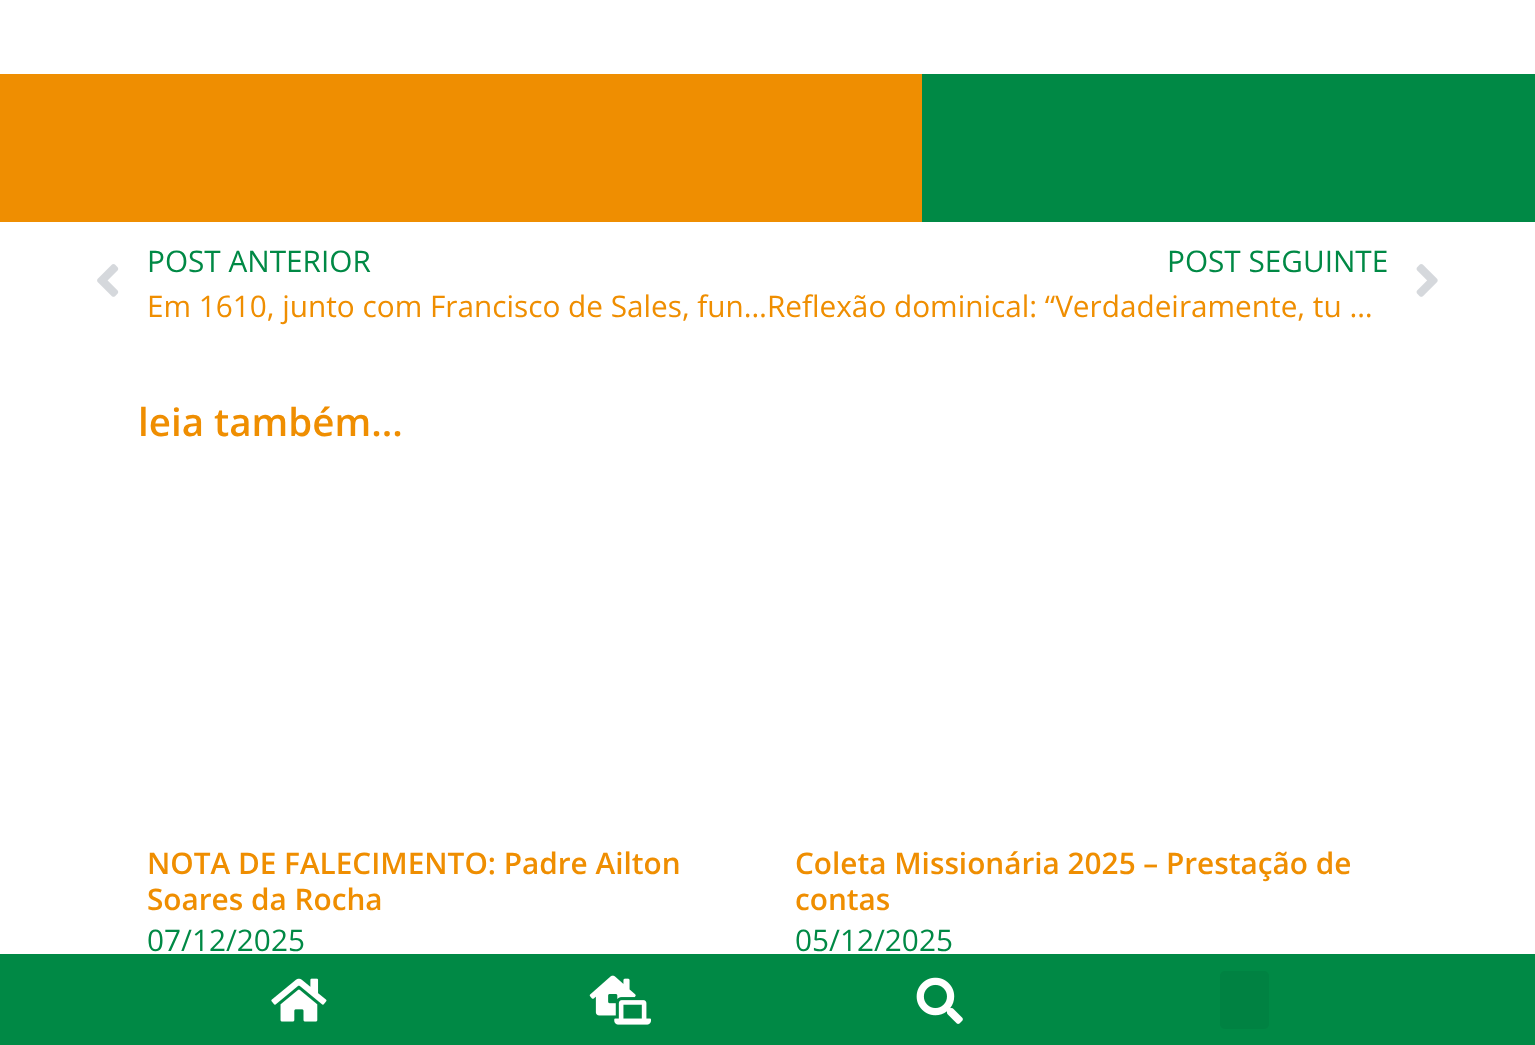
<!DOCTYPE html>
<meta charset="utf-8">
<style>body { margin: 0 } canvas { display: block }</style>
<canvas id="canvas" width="1535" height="1045"></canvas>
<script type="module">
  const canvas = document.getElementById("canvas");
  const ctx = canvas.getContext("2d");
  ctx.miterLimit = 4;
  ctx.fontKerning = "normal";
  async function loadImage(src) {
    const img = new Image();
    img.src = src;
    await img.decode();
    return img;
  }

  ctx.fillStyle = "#ffffff";
  ctx.fillRect(0, 0, 1535, 1045);
  ctx.fillStyle = "#ef8e01";
  ctx.fillRect(0, 74, 922, 148);
  ctx.fillStyle = "#008945";
  ctx.fillRect(922, 74, 613, 148);
  ctx.drawImage(await loadImage("img1.png"), 97, 264, 22, 33);
  ctx.font = "29.75px Open Sans";
  ctx.fillText("POST ANTERIOR", 147, 272);
  ctx.fillStyle = "#ef8e01";
  ctx.fillText("Em 1610, junto com Francisco de Sales, fun…", 147, 317);
  ctx.fillStyle = "#008945";
  ctx.fillText("POST SEGUINTE", 1167, 272);
  ctx.fillStyle = "#ef8e01";
  ctx.fillText("Reflexão dominical: “Verdadeiramente, tu …", 767, 317);
  ctx.drawImage(await loadImage("img2.png"), 1416, 264, 22, 33);
  ctx.font = "600 38.5px Open Sans";
  ctx.fillText("leia também...", 138, 436);
  ctx.font = "600 29.75px Open Sans";
  ctx.fillText("NOTA DE FALECIMENTO: Padre Ailton", 147, 874);
  ctx.fillText("Soares da Rocha", 147, 910);
  ctx.font = "29.75px Open Sans";
  ctx.fillStyle = "#008945";
  ctx.fillText("07/12/2025", 147, 951);
  ctx.font = "600 29.75px Open Sans";
  ctx.fillStyle = "#ef8e01";
  ctx.fillText("Coleta Missionária 2025 – Prestação de", 795, 874);
  ctx.fillText("contas", 795, 910);
  ctx.font = "29.75px Open Sans";
  ctx.fillStyle = "#008945";
  ctx.fillText("05/12/2025", 795, 951);
  ctx.fillRect(0, 954, 1535, 91);
  ctx.drawImage(await loadImage("img3.png"), 271, 978, 56, 44);
  ctx.drawImage(await loadImage("img4.png"), 589, 975, 62, 50);
  ctx.drawImage(await loadImage("img5.png"), 916, 977, 47, 47);
  ctx.fillStyle = "#008242";
  ctx.beginPath();
  ctx.roundRect(1220, 971, 49, 58, 5);
  ctx.fill();
</script>
